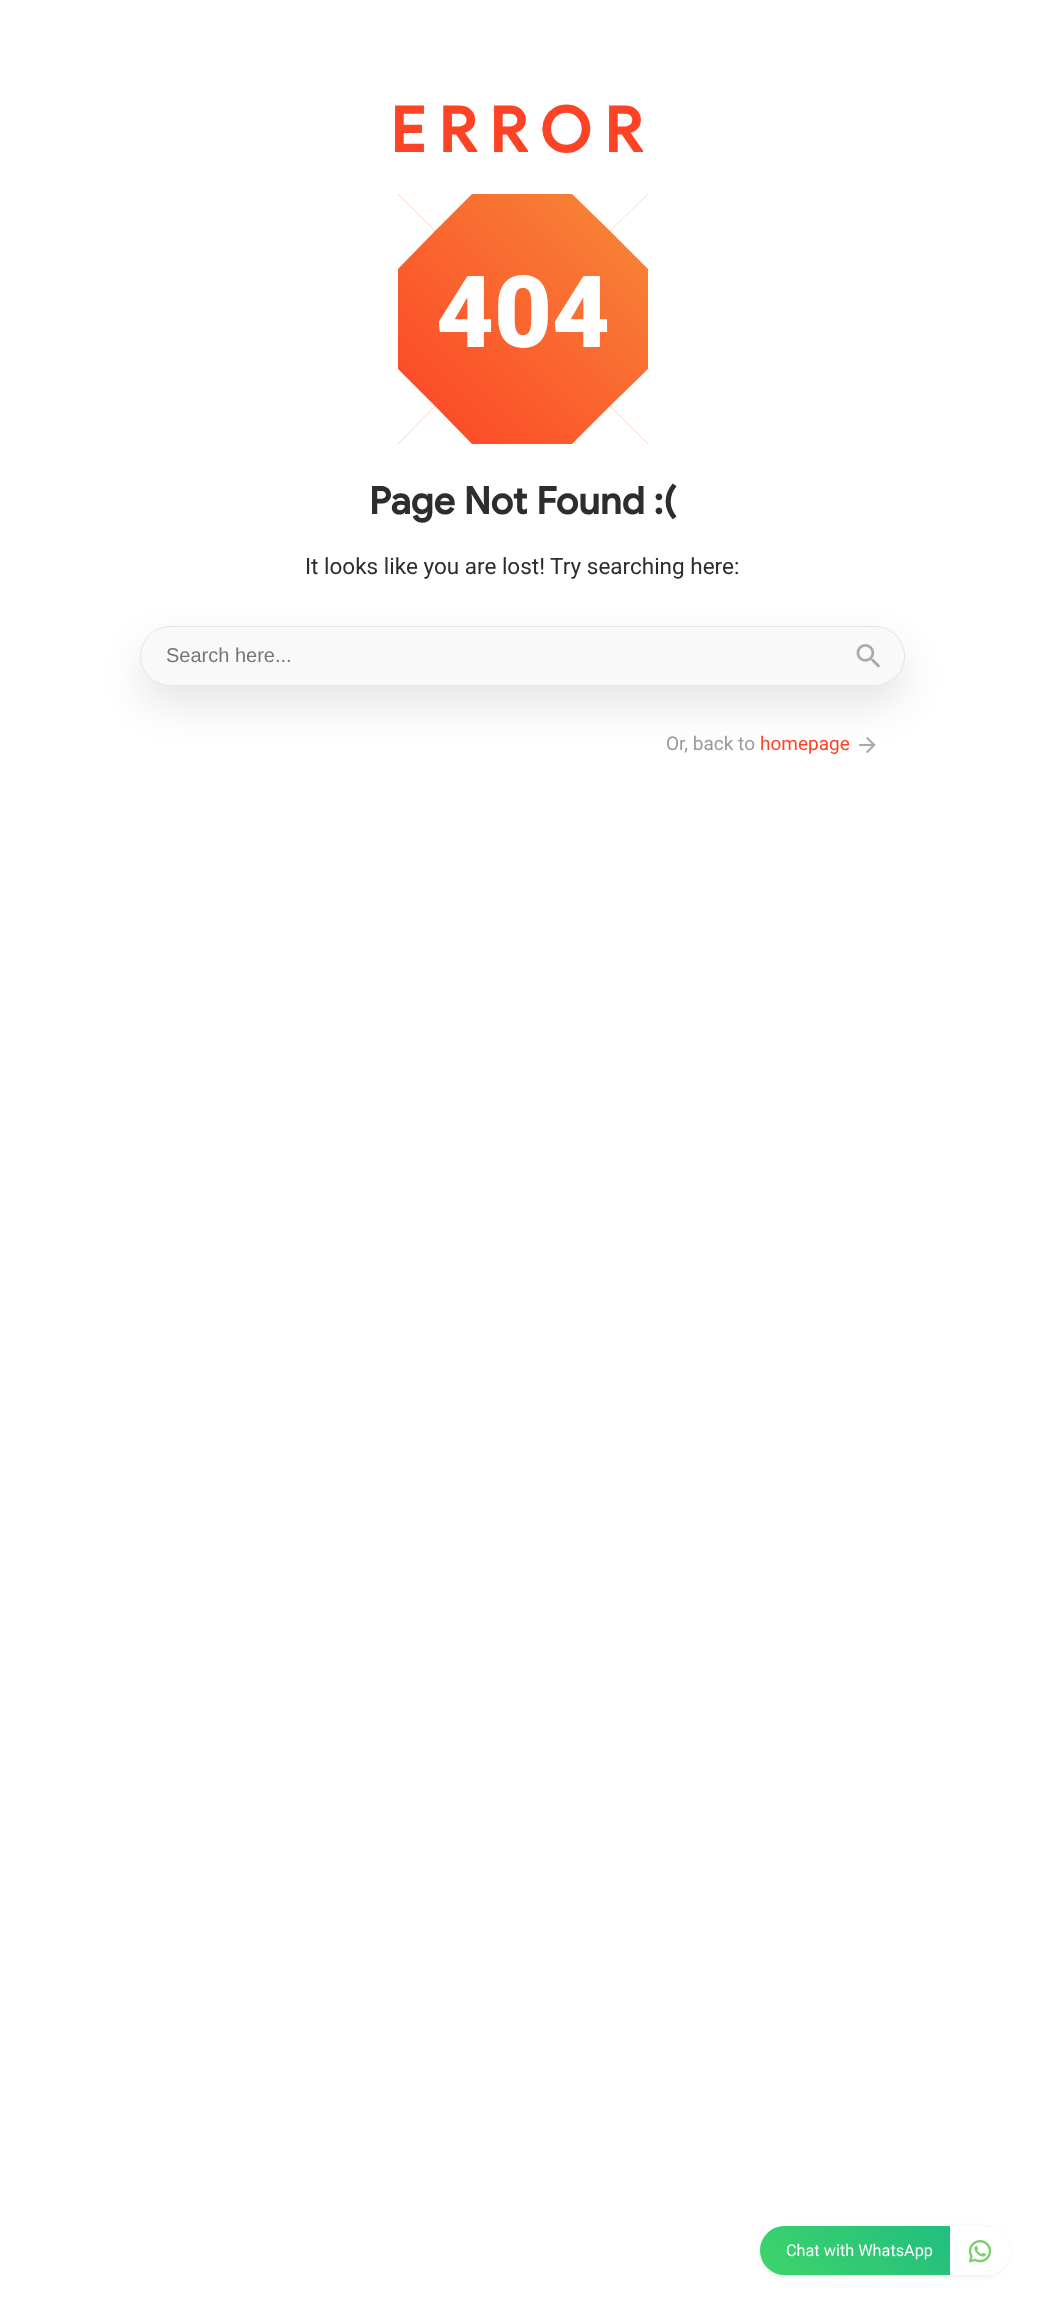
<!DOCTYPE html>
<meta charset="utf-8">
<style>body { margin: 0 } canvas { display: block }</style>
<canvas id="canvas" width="1044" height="2306"></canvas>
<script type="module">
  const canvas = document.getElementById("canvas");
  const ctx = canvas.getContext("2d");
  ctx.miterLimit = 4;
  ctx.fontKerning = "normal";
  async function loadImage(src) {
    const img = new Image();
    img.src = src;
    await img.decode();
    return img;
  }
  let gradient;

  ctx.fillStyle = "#ffffff";
  ctx.fillRect(0, 0, 1044, 2306);
  ctx.letterSpacing = "12.5px";
  ctx.font = "bold 62.5px Google Sans";
  ctx.fillStyle = "#fd4326";
  ctx.fillText("ERROR", 390, 152);
  gradient = ctx.createLinearGradient(398, 444, 648, 194);
  gradient.addColorStop(0, "#fd4326");
  gradient.addColorStop(1, "#f78938");
  ctx.fillStyle = gradient;
  ctx.fillRect(398, 194, 250, 250);
  ctx.fillStyle = "#ffffff";
  ctx.beginPath();
  ctx.moveTo(398, 194);
  ctx.lineTo(472, 194);
  ctx.lineTo(435, 231);
  ctx.closePath();
  ctx.fill();
  ctx.beginPath();
  ctx.moveTo(398, 269);
  ctx.lineTo(398, 194);
  ctx.lineTo(435, 231);
  ctx.closePath();
  ctx.fill();
  ctx.beginPath();
  ctx.moveTo(572, 194);
  ctx.lineTo(648, 194);
  ctx.lineTo(610, 231);
  ctx.closePath();
  ctx.fill();
  ctx.beginPath();
  ctx.moveTo(648, 194);
  ctx.lineTo(648, 269);
  ctx.lineTo(610, 231);
  ctx.closePath();
  ctx.fill();
  ctx.letterSpacing = "0px";
  ctx.font = "900 100px Roboto";
  ctx.fillText("404", 436, 347);
  ctx.beginPath();
  ctx.moveTo(472, 444);
  ctx.lineTo(398, 444);
  ctx.lineTo(435, 406);
  ctx.closePath();
  ctx.fill();
  ctx.beginPath();
  ctx.moveTo(398, 444);
  ctx.lineTo(398, 369);
  ctx.lineTo(435, 406);
  ctx.closePath();
  ctx.fill();
  ctx.beginPath();
  ctx.moveTo(648, 369);
  ctx.lineTo(648, 444);
  ctx.lineTo(610, 406);
  ctx.closePath();
  ctx.fill();
  ctx.beginPath();
  ctx.moveTo(648, 444);
  ctx.lineTo(572, 444);
  ctx.lineTo(610, 406);
  ctx.closePath();
  ctx.fill();
  ctx.font = "bold 37.5px Google Sans";
  ctx.fillStyle = "#2d2d2d";
  ctx.fillText("Page Not Found :(", 369, 514);
  ctx.font = "22.5px Roboto";
  ctx.fillText("It looks like you are lost! Try searching here:", 305, 574);
  ctx.fillStyle = "rgba(0, 0, 0, 0.1)";
  ctx.filter = "blur(20px)";
  ctx.beginPath();
  ctx.roundRect(140, 645, 765, 60, 30);
  ctx.fill();
  ctx.filter = "none";
  ctx.fillStyle = "#f9f9f9";
  ctx.beginPath();
  ctx.roundRect(140.5, 626.5, 764, 59, 29.5);
  ctx.fill();
  ctx.strokeStyle = "#e5e5e5";
  ctx.stroke();
  ctx.font = "20px Liberation Sans";
  ctx.fillStyle = "#757575";
  ctx.fillText("Search here...", 166, 662);
  ctx.drawImage(await loadImage("img1.png"), 856, 644, 25, 24);
  ctx.font = "19px Roboto";
  ctx.fillStyle = "#999999";
  ctx.fillText("Or, back to", 666, 750);
  ctx.fillStyle = "#fd4326";
  ctx.fillText("homepage", 760, 750);
  ctx.drawImage(await loadImage("img2.png"), 859, 736, 17, 18);
  ctx.fillStyle = "rgba(154, 154, 154, 0.2)";
  ctx.filter = "blur(3px)";
  ctx.beginPath();
  ctx.roundRect(760, 2228, 248, 48, 24);
  ctx.fill();
  ctx.filter = "none";
  gradient = ctx.createLinearGradient(810, 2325, 958, 2177);
  gradient.addColorStop(0, "#3ed469");
  gradient.addColorStop(1, "#1ab986");
  ctx.fillStyle = gradient;
  ctx.beginPath();
  ctx.roundRect(760, 2226, 248, 49, 24.5);
  ctx.fill();
  ctx.font = "16.25px Roboto";
  ctx.fillStyle = "#ffffff";
  ctx.fillText("Chat with WhatsApp", 786, 2256);
  ctx.beginPath();
  ctx.roundRect(950, 2226, 60, 49, [0, 24.5, 24.5, 0]);
  ctx.fill();
  ctx.drawImage(await loadImage("img3.png"), 969, 2240, 22, 23);
</script>
